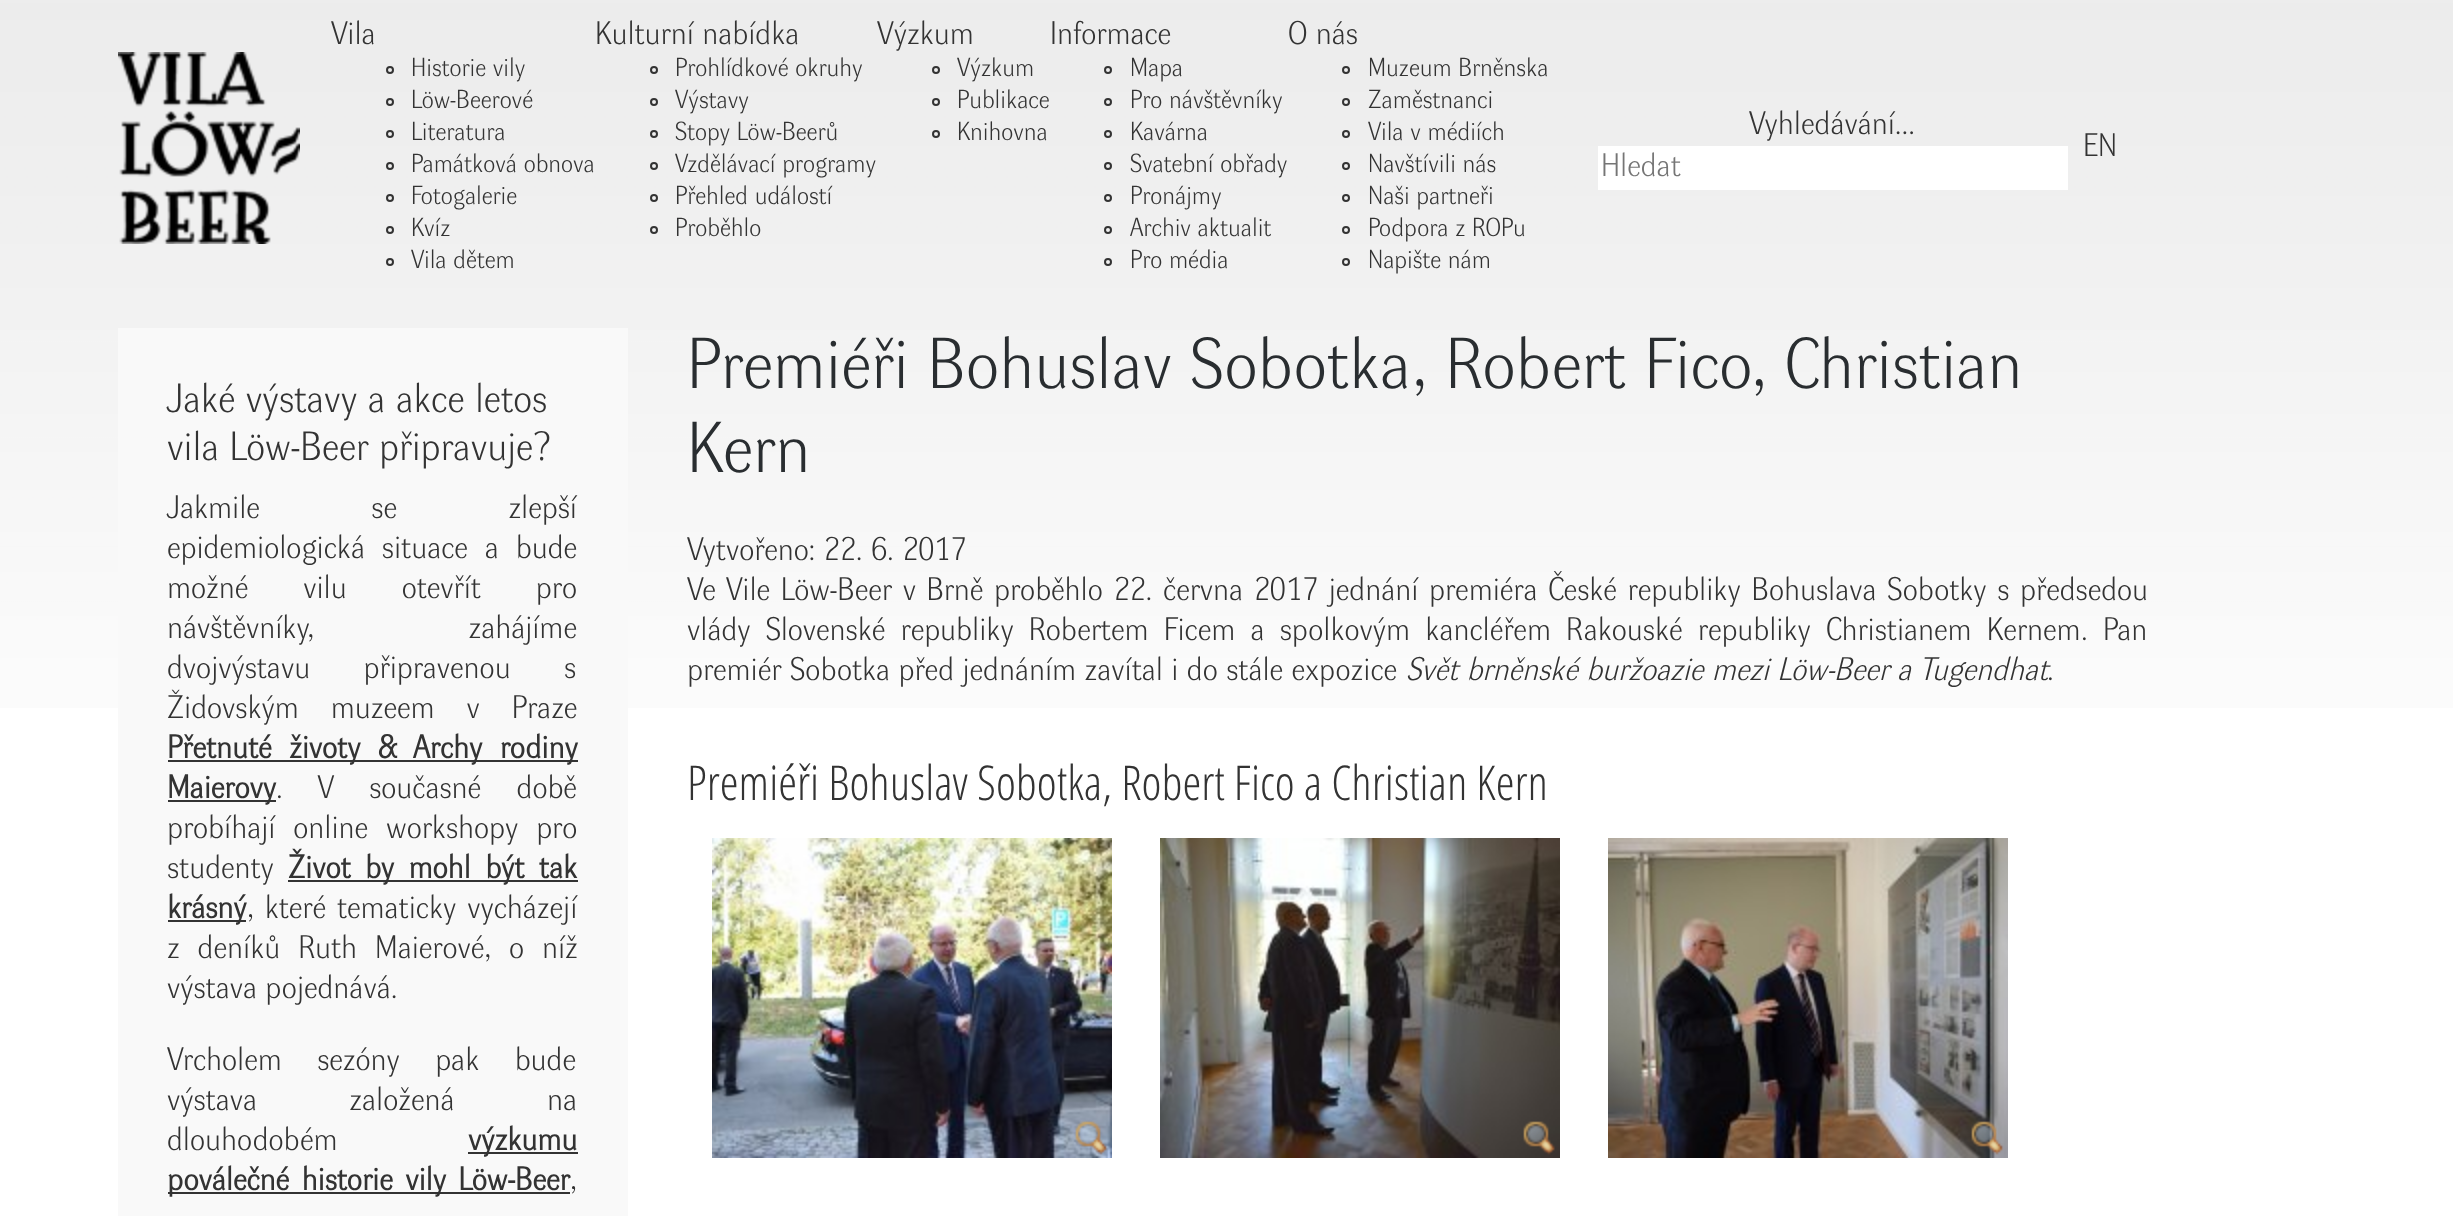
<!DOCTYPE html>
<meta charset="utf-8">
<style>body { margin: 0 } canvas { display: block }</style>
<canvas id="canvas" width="2453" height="1216"></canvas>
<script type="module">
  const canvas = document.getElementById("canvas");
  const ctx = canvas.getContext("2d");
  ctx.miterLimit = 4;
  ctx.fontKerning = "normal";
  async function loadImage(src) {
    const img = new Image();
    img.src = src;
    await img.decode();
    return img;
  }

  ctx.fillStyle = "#ffffff";
  ctx.fillRect(0, 0, 2453, 1216);
  ctx.drawImage(await loadImage("img1.png"), 0, 0, 2453, 708);
  ctx.drawImage(await loadImage("img2.png"), 118, 52, 182, 192);
  ctx.font = "32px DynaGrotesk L";
  ctx.fillStyle = "#333333";
  ctx.fillText("Vila", 331, 44);
  ctx.beginPath();
  ctx.arc(390, 70, 3, 0, Math.PI * 2);
  ctx.strokeStyle = "#333333";
  ctx.lineWidth = 2;
  ctx.stroke();
  ctx.font = "25.5px DynaGrotesk L";
  ctx.fillText("Historie vily", 411, 76);
  ctx.beginPath();
  ctx.arc(390, 102, 3, 0, Math.PI * 2);
  ctx.stroke();
  ctx.fillText("Löw-Beerové", 411, 108);
  ctx.beginPath();
  ctx.arc(390, 134, 3, 0, Math.PI * 2);
  ctx.stroke();
  ctx.fillText("Literatura", 411, 140);
  ctx.beginPath();
  ctx.arc(390, 166, 3, 0, Math.PI * 2);
  ctx.stroke();
  ctx.fillText("Památková obnova", 411, 172);
  ctx.beginPath();
  ctx.arc(390, 198, 3, 0, Math.PI * 2);
  ctx.stroke();
  ctx.fillText("Fotogalerie", 411, 204);
  ctx.beginPath();
  ctx.arc(390, 230, 3, 0, Math.PI * 2);
  ctx.stroke();
  ctx.fillText("Kvíz", 411, 236);
  ctx.beginPath();
  ctx.arc(390, 262, 3, 0, Math.PI * 2);
  ctx.stroke();
  ctx.fillText("Vila dětem", 411, 268);
  ctx.font = "32px DynaGrotesk L";
  ctx.fillText("Kulturní nabídka", 595, 44);
  ctx.beginPath();
  ctx.arc(654, 70, 3, 0, Math.PI * 2);
  ctx.stroke();
  ctx.font = "25.5px DynaGrotesk L";
  ctx.fillText("Prohlídkové okruhy", 675, 76);
  ctx.beginPath();
  ctx.arc(654, 102, 3, 0, Math.PI * 2);
  ctx.stroke();
  ctx.fillText("Výstavy", 675, 108);
  ctx.beginPath();
  ctx.arc(654, 134, 3, 0, Math.PI * 2);
  ctx.stroke();
  ctx.fillText("Stopy Löw-Beerů", 675, 140);
  ctx.beginPath();
  ctx.arc(654, 166, 3, 0, Math.PI * 2);
  ctx.stroke();
  ctx.fillText("Vzdělávací programy", 675, 172);
  ctx.beginPath();
  ctx.arc(654, 198, 3, 0, Math.PI * 2);
  ctx.stroke();
  ctx.fillText("Přehled událostí", 675, 204);
  ctx.beginPath();
  ctx.arc(654, 230, 3, 0, Math.PI * 2);
  ctx.stroke();
  ctx.fillText("Proběhlo", 675, 236);
  ctx.font = "32px DynaGrotesk L";
  ctx.fillText("Výzkum", 877, 44);
  ctx.beginPath();
  ctx.arc(936, 70, 3, 0, Math.PI * 2);
  ctx.stroke();
  ctx.font = "25.5px DynaGrotesk L";
  ctx.fillText("Výzkum", 957, 76);
  ctx.beginPath();
  ctx.arc(936, 102, 3, 0, Math.PI * 2);
  ctx.stroke();
  ctx.fillText("Publikace", 957, 108);
  ctx.beginPath();
  ctx.arc(936, 134, 3, 0, Math.PI * 2);
  ctx.stroke();
  ctx.fillText("Knihovna", 957, 140);
  ctx.font = "32px DynaGrotesk L";
  ctx.fillText("Informace", 1050, 44);
  ctx.beginPath();
  ctx.arc(1108, 70, 3, 0, Math.PI * 2);
  ctx.stroke();
  ctx.font = "25.5px DynaGrotesk L";
  ctx.fillText("Mapa", 1130, 76);
  ctx.beginPath();
  ctx.arc(1108, 102, 3, 0, Math.PI * 2);
  ctx.stroke();
  ctx.fillText("Pro návštěvníky", 1130, 108);
  ctx.beginPath();
  ctx.arc(1108, 134, 3, 0, Math.PI * 2);
  ctx.stroke();
  ctx.fillText("Kavárna", 1130, 140);
  ctx.beginPath();
  ctx.arc(1108, 166, 3, 0, Math.PI * 2);
  ctx.stroke();
  ctx.fillText("Svatební obřady", 1130, 172);
  ctx.beginPath();
  ctx.arc(1108, 198, 3, 0, Math.PI * 2);
  ctx.stroke();
  ctx.fillText("Pronájmy", 1130, 204);
  ctx.beginPath();
  ctx.arc(1108, 230, 3, 0, Math.PI * 2);
  ctx.stroke();
  ctx.fillText("Archiv aktualit", 1130, 236);
  ctx.beginPath();
  ctx.arc(1108, 262, 3, 0, Math.PI * 2);
  ctx.stroke();
  ctx.fillText("Pro média", 1130, 268);
  ctx.font = "32px DynaGrotesk L";
  ctx.fillText("O nás", 1288, 44);
  ctx.beginPath();
  ctx.arc(1346, 70, 3, 0, Math.PI * 2);
  ctx.stroke();
  ctx.font = "25.5px DynaGrotesk L";
  ctx.fillText("Muzeum Brněnska", 1368, 76);
  ctx.beginPath();
  ctx.arc(1346, 102, 3, 0, Math.PI * 2);
  ctx.stroke();
  ctx.fillText("Zaměstnanci", 1368, 108);
  ctx.beginPath();
  ctx.arc(1346, 134, 3, 0, Math.PI * 2);
  ctx.stroke();
  ctx.fillText("Vila v médiích", 1368, 140);
  ctx.beginPath();
  ctx.arc(1346, 166, 3, 0, Math.PI * 2);
  ctx.stroke();
  ctx.fillText("Navštívili nás", 1368, 172);
  ctx.beginPath();
  ctx.arc(1346, 198, 3, 0, Math.PI * 2);
  ctx.stroke();
  ctx.fillText("Naši partneři", 1368, 204);
  ctx.beginPath();
  ctx.arc(1346, 230, 3, 0, Math.PI * 2);
  ctx.stroke();
  ctx.fillText("Podpora z ROPu", 1368, 236);
  ctx.beginPath();
  ctx.arc(1346, 262, 3, 0, Math.PI * 2);
  ctx.stroke();
  ctx.fillText("Napište nám", 1368, 268);
  ctx.font = "32px DynaGrotesk L";
  ctx.fillText("Vyhledávání...", 1749, 134);
  ctx.fillStyle = "#ffffff";
  ctx.fillRect(1598, 146, 470, 44);
  ctx.fillStyle = "#757575";
  ctx.fillText("Hledat", 1601, 176);
  ctx.fillStyle = "#333333";
  ctx.fillText("EN", 2083, 156);
  ctx.fillStyle = "#f9f9f9";
  ctx.fillRect(118, 328, 510, 888);
  ctx.font = "40px DynaGrotesk L";
  ctx.fillStyle = "#333333";
  ctx.fillText("Jaké výstavy a akce letos", 167, 412);
  ctx.fillText("vila Löw-Beer připravuje?", 167, 460);
  ctx.wordSpacing = "103px";
  ctx.font = "32px DynaGrotesk L";
  ctx.fillText("Jakmile se zlepší", 167, 518);
  ctx.wordSpacing = "8.5px";
  ctx.fillText("epidemiologická situace a bude", 167, 558);
  ctx.wordSpacing = "46.5px";
  ctx.fillText("možné vilu otevřít pro", 167, 598);
  ctx.wordSpacing = "146px";
  ctx.fillText("návštěvníky, zahájíme", 167, 638);
  ctx.wordSpacing = "45px";
  ctx.fillText("dvojvýstavu připravenou s", 167, 678);
  ctx.wordSpacing = "23.5px";
  ctx.fillText("Židovským muzeem v Praze", 167, 718);
  ctx.fillRect(168, 760, 410, 2);
  ctx.wordSpacing = "9px";
  ctx.font = "bold 32px DynaGrotesk L";
  ctx.fillText("Přetnuté životy & Archy rodiny", 167, 758);
  ctx.fillRect(168, 800, 108, 2);
  ctx.wordSpacing = "0px";
  ctx.fillText("Maierovy", 167, 798);
  ctx.wordSpacing = "27px";
  ctx.font = "32px DynaGrotesk L";
  ctx.fillText(". V současné době", 276, 798);
  ctx.wordSpacing = "9.5px";
  ctx.fillText("probíhají online workshopy pro", 167, 838);
  ctx.wordSpacing = "0px";
  ctx.fillText("studenty", 167, 878);
  ctx.fillRect(288, 880, 290, 2);
  ctx.wordSpacing = "6px";
  ctx.font = "bold 32px DynaGrotesk L";
  ctx.fillText("Život by mohl být tak", 288, 878);
  ctx.fillRect(168, 920, 78, 2);
  ctx.wordSpacing = "0px";
  ctx.fillText("krásný", 167, 918);
  ctx.wordSpacing = "2.5px";
  ctx.font = "32px DynaGrotesk L";
  ctx.fillText(", které tematicky vycházejí", 247, 918);
  ctx.wordSpacing = "9.5px";
  ctx.fillText("z deníků Ruth Maierové, o níž", 167, 958);
  ctx.wordSpacing = "0px";
  ctx.fillText("výstava pojednává.", 167, 998);
  ctx.wordSpacing = "27px";
  ctx.fillText("Vrcholem sezóny pak bude", 167, 1070);
  ctx.wordSpacing = "84px";
  ctx.fillText("výstava založená na", 167, 1110);
  ctx.wordSpacing = "0px";
  ctx.fillText("dlouhodobém", 167, 1150);
  ctx.fillRect(468, 1152, 110, 2);
  ctx.font = "bold 32px DynaGrotesk L";
  ctx.fillText("výzkumu", 468, 1150);
  ctx.fillRect(168, 1192, 402, 2);
  ctx.wordSpacing = "4px";
  ctx.fillText("poválečné historie vily Löw-Beer", 167, 1190);
  ctx.wordSpacing = "0px";
  ctx.font = "32px DynaGrotesk L";
  ctx.fillText(",", 570, 1190);
  ctx.font = "70.4px DynaGrotesk L";
  ctx.fillStyle = "#292d30";
  ctx.fillText("Premiéři Bohuslav Sobotka, Robert Fico, Christian", 687, 388);
  ctx.fillText("Kern", 687, 472);
  ctx.font = "32px DynaGrotesk L";
  ctx.fillStyle = "#333333";
  ctx.fillText("Vytvořeno: 22. 6. 2017", 687, 560);
  ctx.wordSpacing = "2.25px";
  ctx.fillText("Ve Vile Löw-Beer v Brně proběhlo 22. června 2017 jednání premiéra České republiky Bohuslava Sobotky s předsedou", 687, 600);
  ctx.wordSpacing = "6.75px";
  ctx.fillText("vlády Slovenské republiky Robertem Ficem a spolkovým kancléřem Rakouské republiky Christianem Kernem. Pan", 687, 640);
  ctx.wordSpacing = "0px";
  ctx.fillText("premiér Sobotka před jednáním zavítal i do stále expozice", 687, 680);
  ctx.font = "italic 32px DynaGrotesk L";
  ctx.fillText("Svět brněnské buržoazie mezi Löw-Beer a Tugendhat", 1406, 680);
  ctx.font = "32px DynaGrotesk L";
  ctx.fillText(".", 2047, 680);
  ctx.font = "300 48px Open Sans Condensed";
  ctx.fillText("Premiéři Bohuslav Sobotka, Robert Fico a Christian Kern", 687, 800);
  ctx.drawImage(await loadImage("img3.png"), 712, 838, 400, 320);
  ctx.drawImage(await loadImage("img4.png"), 1075, 1121, 33, 34);
  ctx.drawImage(await loadImage("img5.png"), 1160, 838, 400, 320);
  ctx.drawImage(await loadImage("img6.png"), 1523, 1121, 32, 34);
  ctx.drawImage(await loadImage("img7.png"), 1608, 838, 400, 320);
  ctx.drawImage(await loadImage("img8.png"), 1971, 1121, 33, 34);
</script>
